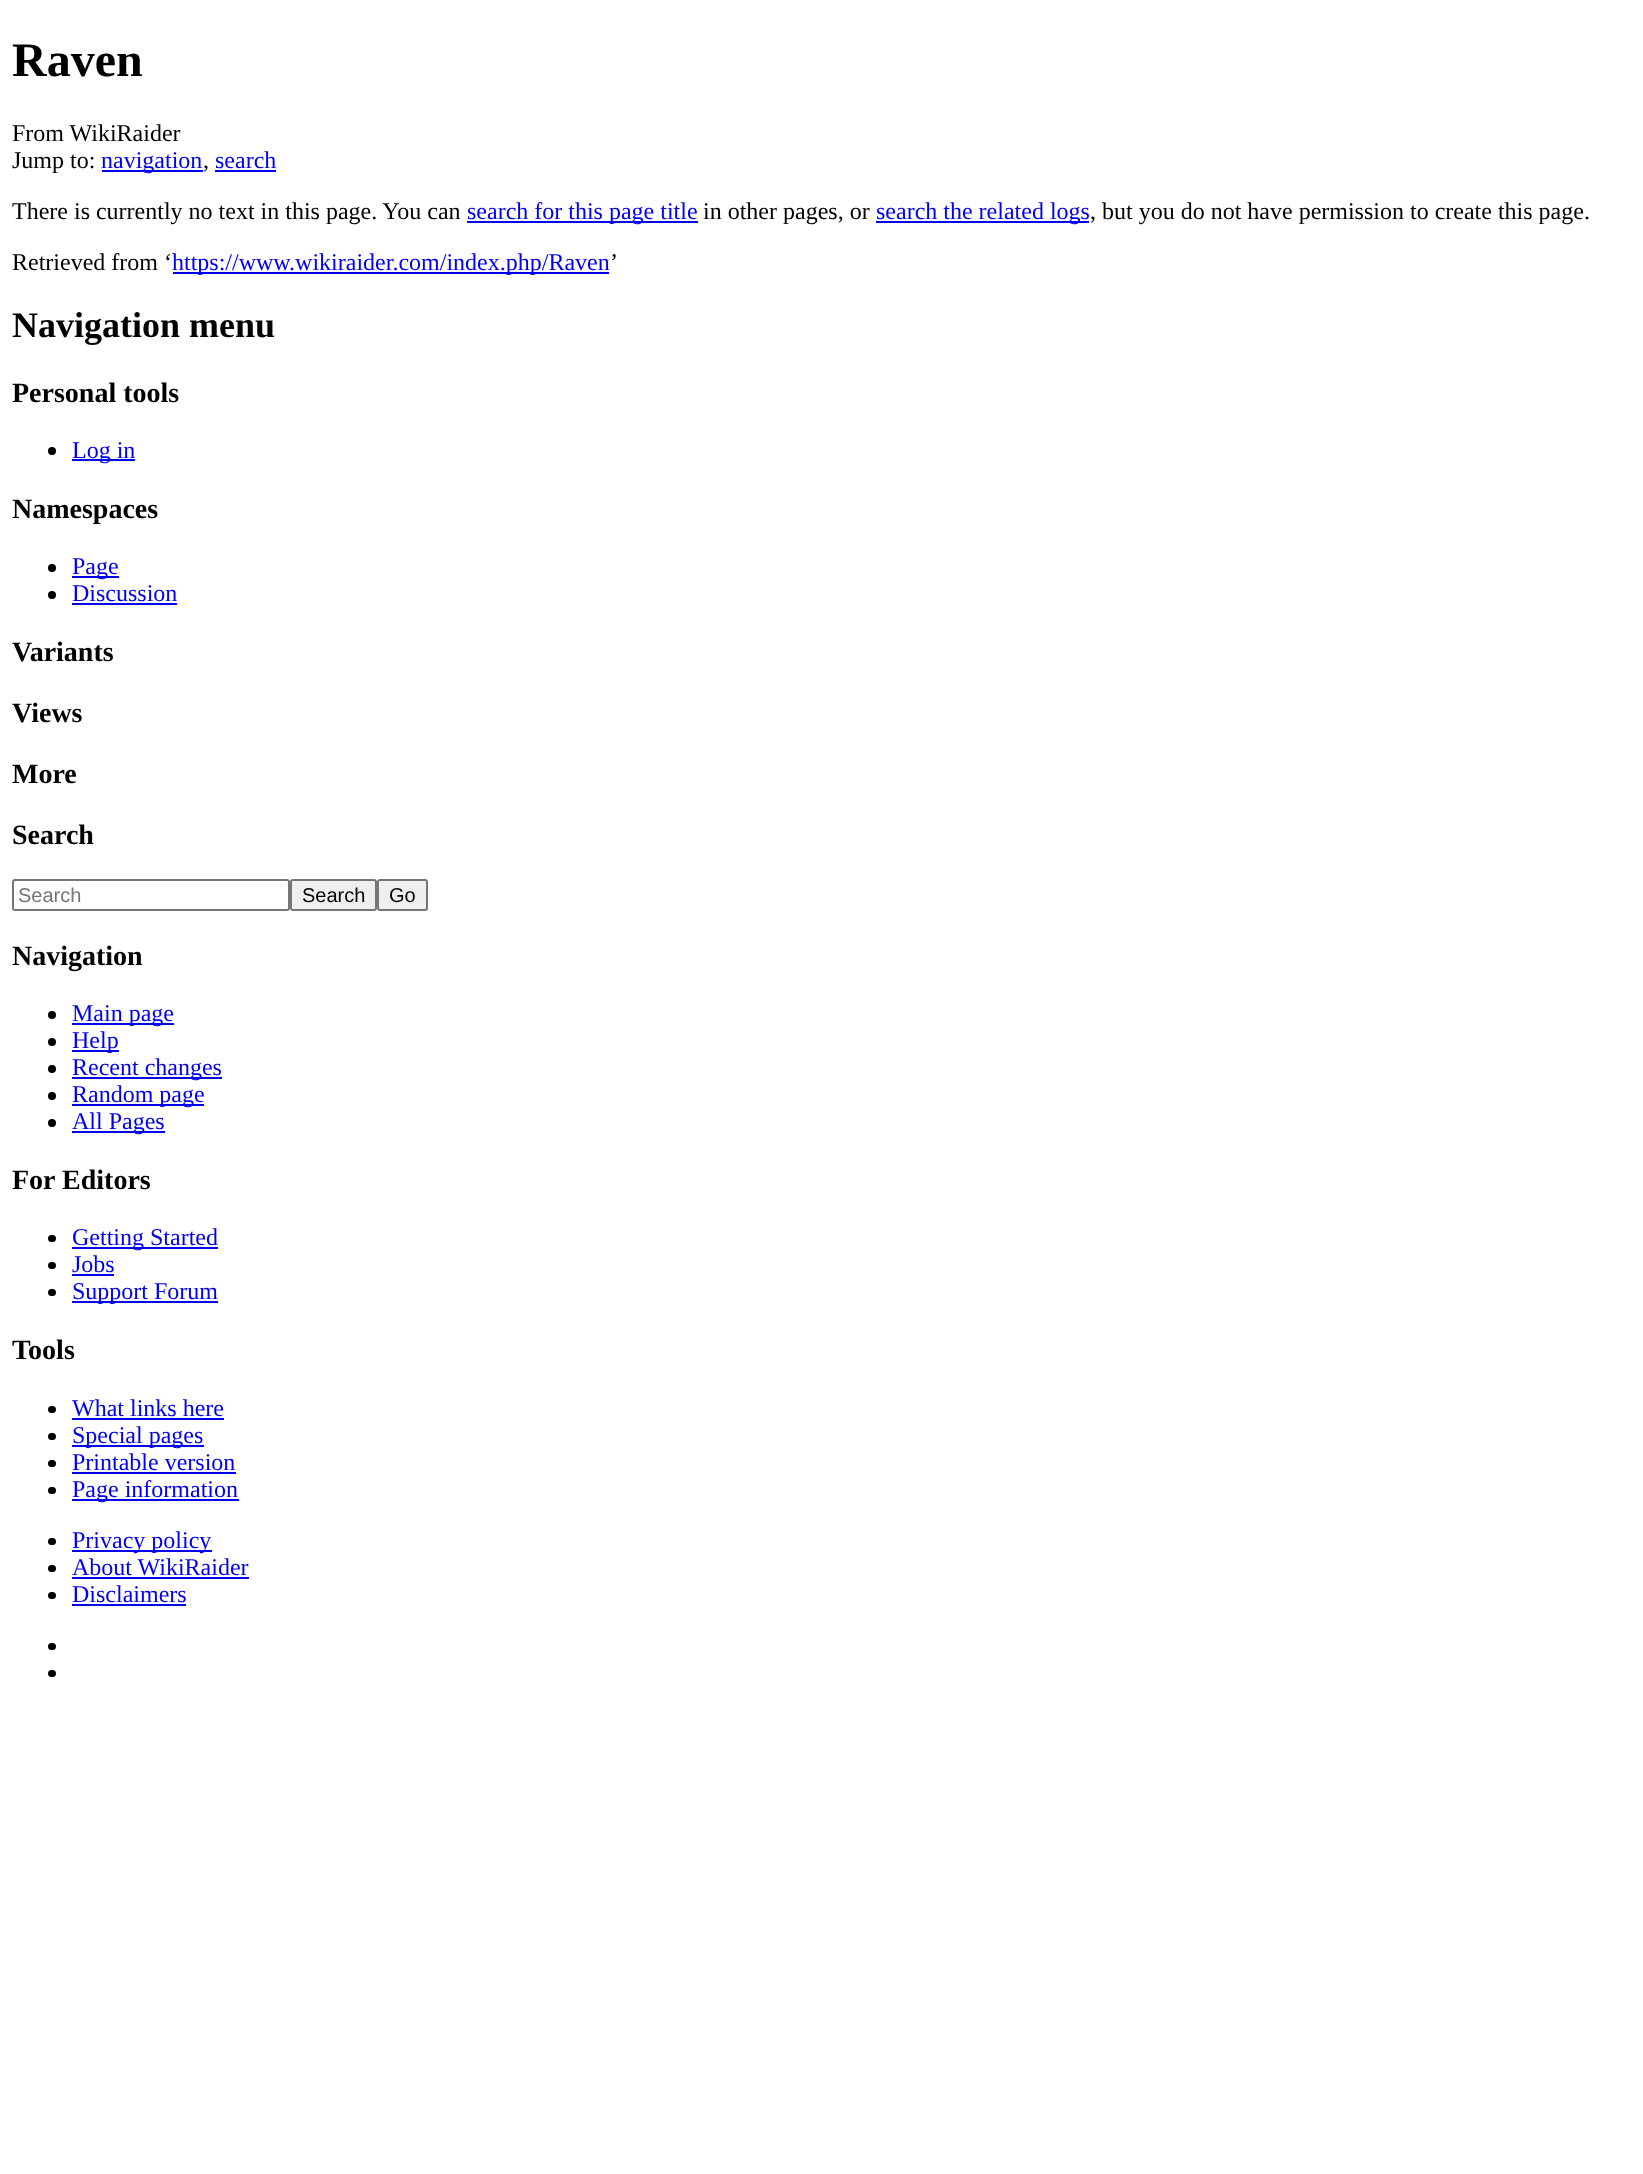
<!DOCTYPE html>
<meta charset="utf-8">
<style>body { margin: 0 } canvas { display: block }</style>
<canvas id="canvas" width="1643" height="2174"></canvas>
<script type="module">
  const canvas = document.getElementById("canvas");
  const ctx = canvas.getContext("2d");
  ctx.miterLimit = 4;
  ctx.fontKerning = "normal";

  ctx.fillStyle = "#ffffff";
  ctx.fillRect(0, 0, 1643, 2174);
  ctx.font = "bold 48px Liberation Serif";
  ctx.fillStyle = "#000000";
  ctx.fillText("Raven", 12, 76);
  ctx.font = "24px Liberation Serif";
  ctx.fillText("From WikiRaider", 12, 141);
  ctx.fillText("Jump to:", 12, 168);
  ctx.fillStyle = "#0000ee";
  ctx.fillRect(102, 170, 101, 2);
  ctx.fillText("navigation", 101, 168);
  ctx.fillStyle = "#000000";
  ctx.fillText(",", 203, 168);
  ctx.fillStyle = "#0000ee";
  ctx.fillText("search", 215, 168);
  ctx.fillRect(215, 170, 61, 2);
  ctx.fillStyle = "#000000";
  ctx.fillText("There is currently no text in this page. You can", 12, 219);
  ctx.fillStyle = "#0000ee";
  ctx.fillRect(467, 221, 231, 2);
  ctx.fillText("search for this page title", 467, 219);
  ctx.fillStyle = "#000000";
  ctx.fillText("in other pages, or", 703, 219);
  ctx.fillStyle = "#0000ee";
  ctx.fillRect(876, 221, 213, 2);
  ctx.fillText("search the related logs", 876, 219);
  ctx.fillStyle = "#000000";
  ctx.fillText(", but you do not have permission to create this page.", 1090, 219);
  ctx.fillText("Retrieved from ‘", 12, 270);
  ctx.fillStyle = "#0000ee";
  ctx.fillRect(173, 272, 436, 2);
  ctx.fillText("https://www.wikiraider.com/index.php/Raven", 172, 270);
  ctx.fillStyle = "#000000";
  ctx.fillText("’", 610, 270);
  ctx.font = "bold 36px Liberation Serif";
  ctx.fillText("Navigation menu", 12, 337);
  ctx.font = "bold 28px Liberation Serif";
  ctx.fillText("Personal tools", 12, 402);
  ctx.beginPath();
  ctx.arc(52, 451, 4, 0, Math.PI * 2);
  ctx.fill();
  ctx.fillStyle = "#0000ee";
  ctx.fillRect(72, 459, 63, 2);
  ctx.font = "24px Liberation Serif";
  ctx.fillText("Log in", 72, 458);
  ctx.font = "bold 28px Liberation Serif";
  ctx.fillStyle = "#000000";
  ctx.fillText("Namespaces", 12, 518);
  ctx.beginPath();
  ctx.arc(52, 568, 4, 0, Math.PI * 2);
  ctx.fill();
  ctx.fillStyle = "#0000ee";
  ctx.fillRect(72, 576, 47, 2);
  ctx.font = "24px Liberation Serif";
  ctx.fillText("Page", 72, 574);
  ctx.fillStyle = "#000000";
  ctx.beginPath();
  ctx.arc(52, 595, 4, 0, Math.PI * 2);
  ctx.fill();
  ctx.fillStyle = "#0000ee";
  ctx.fillText("Discussion", 72, 601);
  ctx.fillRect(72, 603, 105, 2);
  ctx.font = "bold 28px Liberation Serif";
  ctx.fillStyle = "#000000";
  ctx.fillText("Variants", 12, 661);
  ctx.fillText("Views", 12, 722);
  ctx.fillText("More", 12, 783);
  ctx.fillText("Search", 12, 844);
  ctx.beginPath();
  ctx.roundRect(13, 880, 276, 30, 2);
  ctx.strokeStyle = "#767676";
  ctx.lineWidth = 2;
  ctx.stroke();
  ctx.font = "20px Liberation Sans";
  ctx.fillStyle = "#757575";
  ctx.fillText("Search", 18, 902);
  ctx.fillStyle = "#efefef";
  ctx.beginPath();
  ctx.roundRect(291, 880, 85, 30, 2);
  ctx.fill();
  ctx.stroke();
  ctx.fillStyle = "#000000";
  ctx.fillText("Search", 302, 902);
  ctx.fillStyle = "#efefef";
  ctx.beginPath();
  ctx.roundRect(378, 880, 49, 30, 2);
  ctx.fill();
  ctx.stroke();
  ctx.fillStyle = "#000000";
  ctx.fillText("Go", 389, 902);
  ctx.font = "bold 28px Liberation Serif";
  ctx.fillText("Navigation", 12, 965);
  ctx.beginPath();
  ctx.arc(52, 1015, 4, 0, Math.PI * 2);
  ctx.fill();
  ctx.fillStyle = "#0000ee";
  ctx.fillRect(72, 1023, 102, 2);
  ctx.font = "24px Liberation Serif";
  ctx.fillText("Main page", 72, 1021);
  ctx.fillStyle = "#000000";
  ctx.beginPath();
  ctx.arc(52, 1042, 4, 0, Math.PI * 2);
  ctx.fill();
  ctx.fillStyle = "#0000ee";
  ctx.fillRect(72, 1050, 47, 2);
  ctx.fillText("Help", 72, 1048);
  ctx.fillStyle = "#000000";
  ctx.beginPath();
  ctx.arc(52, 1069, 4, 0, Math.PI * 2);
  ctx.fill();
  ctx.fillStyle = "#0000ee";
  ctx.fillRect(72, 1077, 150, 2);
  ctx.fillText("Recent changes", 72, 1075);
  ctx.fillStyle = "#000000";
  ctx.beginPath();
  ctx.arc(52, 1096, 4, 0, Math.PI * 2);
  ctx.fill();
  ctx.fillStyle = "#0000ee";
  ctx.fillRect(72, 1104, 132, 2);
  ctx.fillText("Random page", 72, 1102);
  ctx.fillStyle = "#000000";
  ctx.beginPath();
  ctx.arc(52, 1123, 4, 0, Math.PI * 2);
  ctx.fill();
  ctx.fillStyle = "#0000ee";
  ctx.fillRect(72, 1131, 93, 2);
  ctx.fillText("All Pages", 72, 1129);
  ctx.font = "bold 28px Liberation Serif";
  ctx.fillStyle = "#000000";
  ctx.fillText("For Editors", 12, 1189);
  ctx.beginPath();
  ctx.roundRect(48, 1235, 8, 7, 3.5);
  ctx.fill();
  ctx.fillStyle = "#0000ee";
  ctx.fillRect(72, 1247, 146, 2);
  ctx.font = "24px Liberation Serif";
  ctx.fillText("Getting Started", 72, 1245);
  ctx.fillStyle = "#000000";
  ctx.beginPath();
  ctx.roundRect(48, 1262, 8, 7, 3.5);
  ctx.fill();
  ctx.fillStyle = "#0000ee";
  ctx.fillText("Jobs", 72, 1272);
  ctx.fillRect(72, 1274, 42, 2);
  ctx.fillStyle = "#000000";
  ctx.beginPath();
  ctx.roundRect(48, 1289, 8, 7, 3.5);
  ctx.fill();
  ctx.fillStyle = "#0000ee";
  ctx.fillRect(72, 1301, 146, 2);
  ctx.fillText("Support Forum", 72, 1299);
  ctx.font = "bold 28px Liberation Serif";
  ctx.fillStyle = "#000000";
  ctx.fillText("Tools", 12, 1359);
  ctx.beginPath();
  ctx.roundRect(48, 1406, 8, 7, 3.5);
  ctx.fill();
  ctx.font = "24px Liberation Serif";
  ctx.fillStyle = "#0000ee";
  ctx.fillText("What links here", 72, 1416);
  ctx.fillRect(72, 1418, 152, 2);
  ctx.fillStyle = "#000000";
  ctx.beginPath();
  ctx.roundRect(48, 1433, 8, 7, 3.5);
  ctx.fill();
  ctx.fillStyle = "#0000ee";
  ctx.fillRect(72, 1445, 132, 2);
  ctx.fillText("Special pages", 72, 1443);
  ctx.fillStyle = "#000000";
  ctx.beginPath();
  ctx.roundRect(48, 1460, 8, 7, 3.5);
  ctx.fill();
  ctx.fillStyle = "#0000ee";
  ctx.fillText("Printable version", 72, 1470);
  ctx.fillRect(72, 1472, 164, 2);
  ctx.fillStyle = "#000000";
  ctx.beginPath();
  ctx.roundRect(48, 1487, 8, 7, 3.5);
  ctx.fill();
  ctx.fillStyle = "#0000ee";
  ctx.fillRect(72, 1499, 167, 2);
  ctx.fillText("Page information", 72, 1497);
  ctx.fillStyle = "#000000";
  ctx.beginPath();
  ctx.roundRect(48, 1538, 8, 7, 3.5);
  ctx.fill();
  ctx.fillStyle = "#0000ee";
  ctx.fillRect(72, 1550, 140, 2);
  ctx.fillText("Privacy policy", 72, 1548);
  ctx.fillStyle = "#000000";
  ctx.beginPath();
  ctx.roundRect(48, 1565, 8, 7, 3.5);
  ctx.fill();
  ctx.fillStyle = "#0000ee";
  ctx.fillText("About WikiRaider", 72, 1575);
  ctx.fillRect(72, 1577, 177, 2);
  ctx.fillStyle = "#000000";
  ctx.beginPath();
  ctx.roundRect(48, 1592, 8, 7, 3.5);
  ctx.fill();
  ctx.fillStyle = "#0000ee";
  ctx.fillText("Disclaimers", 72, 1602);
  ctx.fillRect(72, 1604, 114, 2);
  ctx.fillStyle = "#000000";
  ctx.beginPath();
  ctx.roundRect(48, 1643, 8, 7, 3.5);
  ctx.fill();
  ctx.beginPath();
  ctx.roundRect(48, 1670, 8, 7, 3.5);
  ctx.fill();
</script>
